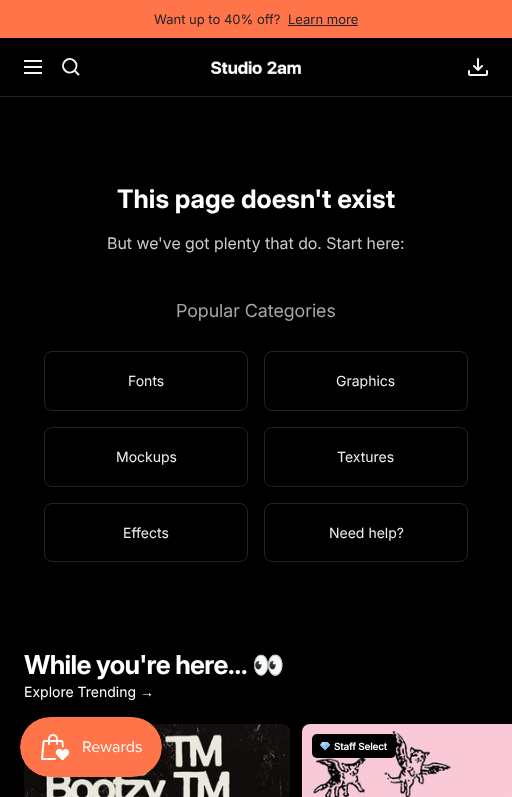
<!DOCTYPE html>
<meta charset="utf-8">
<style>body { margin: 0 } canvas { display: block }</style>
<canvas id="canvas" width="512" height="797"></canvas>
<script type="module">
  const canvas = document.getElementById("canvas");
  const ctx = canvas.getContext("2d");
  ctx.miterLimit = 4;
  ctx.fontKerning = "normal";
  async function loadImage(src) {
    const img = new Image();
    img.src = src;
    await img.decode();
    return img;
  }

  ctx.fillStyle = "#000000";
  ctx.fillRect(0, 0, 512, 797);
  ctx.fillStyle = "#ff7449";
  ctx.fillRect(0, 0, 512, 38);
  ctx.font = "13px Inter";
  ctx.fillStyle = "#222225";
  ctx.fillText("Want up to 40% off?", 154, 24);
  ctx.fillText("Learn more", 288, 24);
  ctx.fillRect(288, 25, 70, 1);
  ctx.fillStyle = "#232324";
  ctx.fillRect(0, 96, 512, 1);
  ctx.beginPath();
  ctx.moveTo(24, 61);
  ctx.lineTo(42, 61);
  ctx.moveTo(24, 73);
  ctx.lineTo(42, 73);
  ctx.closePath();
  ctx.moveTo(24, 67);
  ctx.lineTo(42, 67);
  ctx.closePath();
  ctx.moveTo(74.5, 70.5);
  ctx.bezierCurveTo(80.5, 64, 71.5, 55, 65, 61);
  ctx.bezierCurveTo(59, 67.5, 68, 76.5, 74.5, 70.5);
  ctx.closePath();
  ctx.moveTo(74.5, 70.5);
  ctx.lineTo(79, 75);
  ctx.strokeStyle = "#f4f4f4";
  ctx.lineWidth = 2;
  ctx.stroke();
  ctx.drawImage(await loadImage("img1.png"), 211, 60, 90, 14);
  ctx.drawImage(await loadImage("img2.png"), 468, 58, 20, 18);
  ctx.font = "bold 25.6px 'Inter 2'";
  ctx.fillStyle = "#ffffff";
  ctx.fillText("This page doesn't exist", 117, 208);
  ctx.font = "16px 'Inter 2'";
  ctx.fillStyle = "#c9c9cf";
  ctx.fillText("But we've got plenty that do. Start here:", 107, 249);
  ctx.font = "18px 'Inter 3'";
  ctx.fillStyle = "#a5a5aa";
  ctx.fillText("Popular Categories", 176, 317);
  ctx.beginPath();
  ctx.roundRect(44.5, 351.5, 203, 59, 7.5);
  ctx.strokeStyle = "#232324";
  ctx.lineWidth = 1;
  ctx.stroke();
  ctx.font = "14px Inter";
  ctx.fillStyle = "#ececf3";
  ctx.fillText("Fonts", 128, 386);
  ctx.beginPath();
  ctx.roundRect(264.5, 351.5, 203, 59, 7.5);
  ctx.stroke();
  ctx.fillText("Graphics", 336, 386);
  ctx.beginPath();
  ctx.roundRect(44.5, 427.5, 203, 59, 7.5);
  ctx.stroke();
  ctx.fillText("Mockups", 116, 462);
  ctx.beginPath();
  ctx.roundRect(264.5, 427.5, 203, 59, 7.5);
  ctx.stroke();
  ctx.fillText("Textures", 337, 462);
  ctx.beginPath();
  ctx.roundRect(44.5, 503.5, 203, 58, 7.5);
  ctx.stroke();
  ctx.fillText("Effects", 123, 538);
  ctx.beginPath();
  ctx.roundRect(264.5, 503.5, 203, 58, 7.5);
  ctx.stroke();
  ctx.fillText("Need help?", 329, 538);
  ctx.letterSpacing = "-0.6px";
  ctx.font = "bold 26px Inter";
  ctx.fillStyle = "#ffffff";
  ctx.fillText("While you're here...", 24, 674);
  ctx.font = "bold 26px Noto Color Emoji";
  ctx.fillText("👀", 252, 674);
  ctx.letterSpacing = "0px";
  ctx.font = "14px Inter";
  ctx.fillText("Explore Trending", 24, 697);
  ctx.font = "14px Liberation Sans";
  ctx.fillText("→", 140, 697);
  ctx.drawImage(await loadImage("img3.png"), 24, 724, 266, 73);
  ctx.drawImage(await loadImage("img4.png"), 302, 724, 210, 73);
  ctx.fillStyle = "#000000";
  ctx.beginPath();
  ctx.roundRect(312, 734, 84, 24, 5);
  ctx.fill();
  ctx.drawImage(await loadImage("img5.png"), 320, 742, 10, 8);
  ctx.letterSpacing = "-0.25px";
  ctx.font = "600 10px Inter";
  ctx.fillStyle = "#ffffff";
  ctx.fillText("Staff Select", 334, 750);
  ctx.fillStyle = "rgba(0, 0, 0, 0.05)";
  ctx.filter = "blur(12.5px)";
  ctx.beginPath();
  ctx.roundRect(20, 717, 142, 60, 30);
  ctx.fill();
  ctx.filter = "none";
  ctx.drawImage(await loadImage("img6.png"), 20, 717, 142, 60);
</script>
